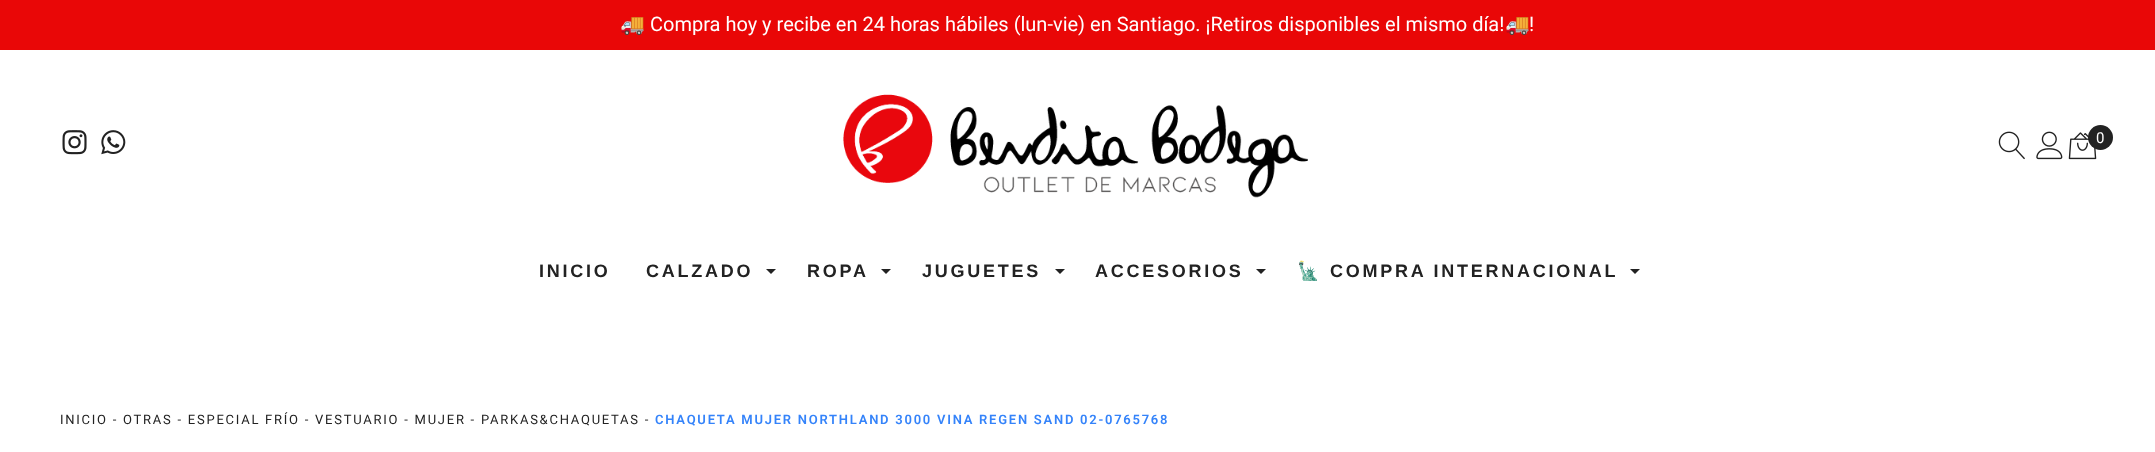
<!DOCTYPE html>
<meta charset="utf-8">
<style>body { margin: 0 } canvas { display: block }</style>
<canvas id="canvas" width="2155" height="452"></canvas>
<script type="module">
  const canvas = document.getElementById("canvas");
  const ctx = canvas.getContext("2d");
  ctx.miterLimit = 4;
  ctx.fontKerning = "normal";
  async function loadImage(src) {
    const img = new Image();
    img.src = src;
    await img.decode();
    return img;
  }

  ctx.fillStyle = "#ffffff";
  ctx.fillRect(0, 0, 2155, 452);
  ctx.fillStyle = "#e90707";
  ctx.fillRect(0, 0, 2155, 50);
  ctx.font = "20px Noto Color Emoji";
  ctx.fillStyle = "#ffffff";
  ctx.fillText("🚚", 620, 31);
  ctx.font = "20px Roboto";
  ctx.fillText("Compra hoy y recibe en 24 horas hábiles (lun-vie) en Santiago. ¡Retiros disponibles el mismo día!", 650, 31);
  ctx.font = "20px Noto Color Emoji";
  ctx.fillText("🚚", 1505, 31);
  ctx.font = "20px Roboto";
  ctx.fillText("!", 1529, 31);
  ctx.drawImage(await loadImage("img1.png"), 62, 130, 25, 25);
  ctx.drawImage(await loadImage("img2.png"), 101, 130, 25, 25);
  ctx.drawImage(await loadImage("img3.png"), 843, 94, 465, 104);
  ctx.drawImage(await loadImage("img4.png"), 1998, 131, 27, 29);
  ctx.drawImage(await loadImage("img5.png"), 2036, 131, 27, 29);
  ctx.drawImage(await loadImage("img6.png"), 2068, 132, 29, 28);
  ctx.fillStyle = "#222222";
  ctx.beginPath();
  ctx.arc(2100.5, 137.5, 12.5, 0, Math.PI * 2);
  ctx.fill();
  ctx.font = "15px Roboto";
  ctx.fillStyle = "#ffffff";
  ctx.fillText("0", 2096, 143);
  ctx.letterSpacing = "2.75px";
  ctx.font = "bold 18px Liberation Sans";
  ctx.fillStyle = "#222222";
  ctx.fillText("INICIO", 539, 277);
  ctx.fillText("CALZADO", 646, 277);
  ctx.beginPath();
  ctx.moveTo(766, 269);
  ctx.lineTo(776, 269);
  ctx.lineTo(771, 274);
  ctx.closePath();
  ctx.fill();
  ctx.fillText("ROPA", 807, 277);
  ctx.beginPath();
  ctx.moveTo(881, 269);
  ctx.lineTo(891, 269);
  ctx.lineTo(886, 274);
  ctx.closePath();
  ctx.fill();
  ctx.fillText("JUGUETES", 922, 277);
  ctx.beginPath();
  ctx.moveTo(1055, 269);
  ctx.lineTo(1065, 269);
  ctx.lineTo(1060, 274);
  ctx.closePath();
  ctx.fill();
  ctx.fillText("ACCESORIOS", 1095, 277);
  ctx.beginPath();
  ctx.moveTo(1256, 269);
  ctx.lineTo(1266, 269);
  ctx.lineTo(1261, 274);
  ctx.closePath();
  ctx.fill();
  ctx.font = "bold 18px Noto Color Emoji";
  ctx.fillText("🗽", 1297, 277);
  ctx.font = "bold 18px Liberation Sans";
  ctx.fillText("COMPRA INTERNACIONAL", 1330, 277);
  ctx.beginPath();
  ctx.moveTo(1630, 269);
  ctx.lineTo(1640, 269);
  ctx.lineTo(1635, 274);
  ctx.closePath();
  ctx.fill();
  ctx.letterSpacing = "1.75px";
  ctx.font = "13px Roboto";
  ctx.fillText("INICIO - OTRAS - ESPECIAL FRÍO - VESTUARIO - MUJER - PARKAS&CHAQUETAS -", 60, 424);
  ctx.font = "600 13px Roboto";
  ctx.fillStyle = "#3483fa";
  ctx.fillText("CHAQUETA MUJER NORTHLAND 3000 VINA REGEN SAND 02-0765768", 655, 424);
</script>
